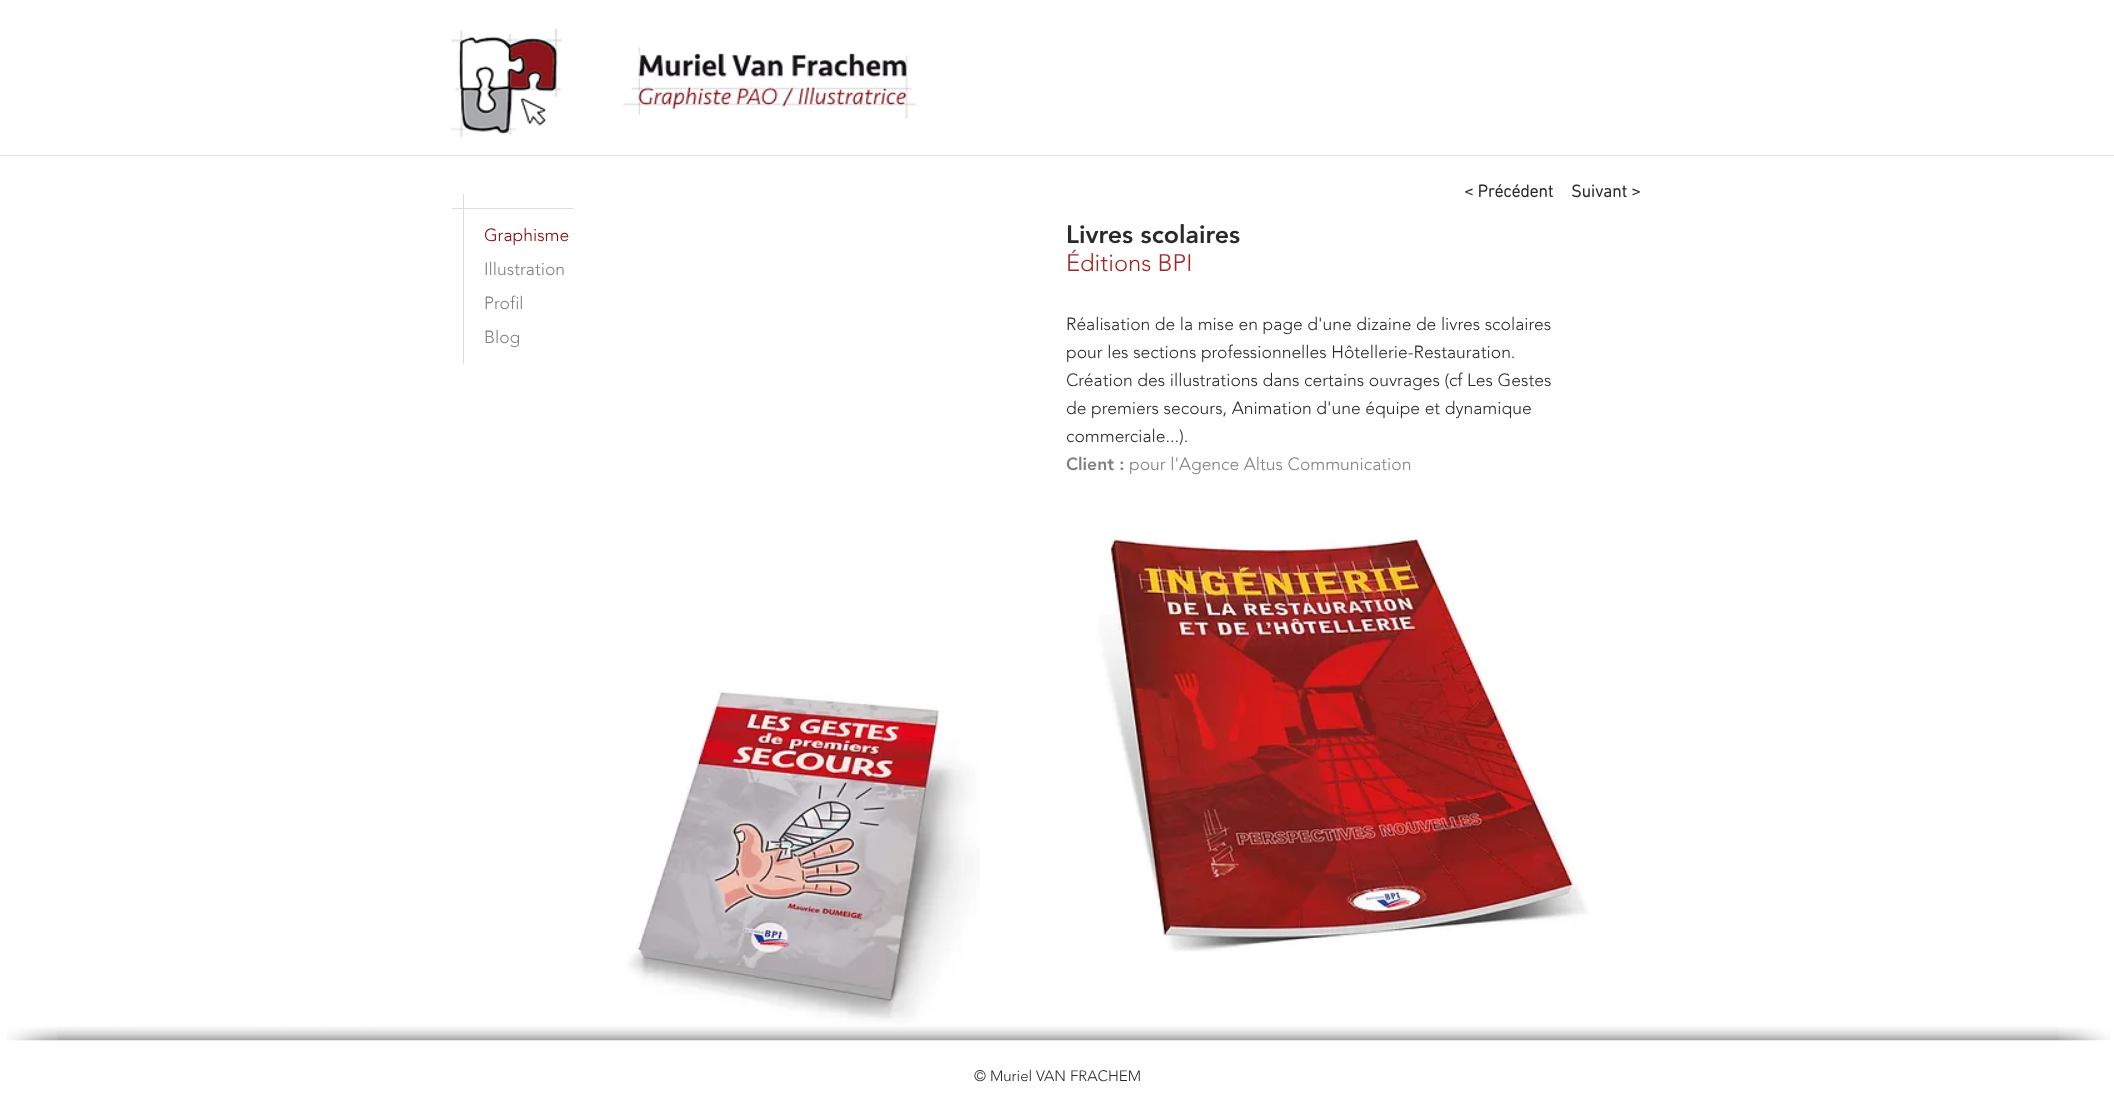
<!DOCTYPE html>
<meta charset="utf-8">
<style>body { margin: 0 } canvas { display: block }</style>
<canvas id="canvas" width="2114" height="1095"></canvas>
<script type="module">
  const canvas = document.getElementById("canvas");
  const ctx = canvas.getContext("2d");
  ctx.miterLimit = 4;
  ctx.fontKerning = "normal";
  async function loadImage(src) {
    const img = new Image();
    img.src = src;
    await img.decode();
    return img;
  }

  ctx.fillStyle = "#ffffff";
  ctx.fillRect(0, 0, 2114, 1095);
  ctx.drawImage(await loadImage("img1.png"), 450, 28, 466, 110);
  ctx.fillStyle = "#dddddd";
  ctx.fillRect(463, 194, 1, 170);
  ctx.fillRect(452, 208, 121, 1);
  ctx.fillRect(0, 155, 2114, 1);
  ctx.font = "300 17.5px 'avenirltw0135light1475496'";
  ctx.fillStyle = "#8b0000";
  ctx.fillText("Graphisme", 484, 241);
  ctx.fillStyle = "#808080";
  ctx.fillText("Illustration", 484, 275);
  ctx.fillText("Profil", 484, 309);
  ctx.fillText("Blog", 484, 343);
  ctx.font = "bold 17.5px 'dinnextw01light'";
  ctx.fillStyle = "#2a2a2a";
  ctx.fillText("< Précédent", 1464, 197);
  ctx.fillText("Suivant >", 1571, 197);
  ctx.font = "900 25px 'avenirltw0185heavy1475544'";
  ctx.fillText("Livres scolaires", 1066, 243);
  ctx.font = "300 23.75px 'avenirltw0135light1475496'";
  ctx.fillStyle = "#a52626";
  ctx.fillText("Éditions BPI", 1066, 271);
  ctx.font = "300 17.5px 'avenirltw0135light1475496'";
  ctx.fillStyle = "#2a2a2a";
  ctx.fillText("Réalisation de la mise en page d'une dizaine de livres scolaires", 1066, 330);
  ctx.fillText("pour les sections professionnelles Hôtellerie-Restauration.", 1066, 358);
  ctx.fillText("Création des illustrations dans certains ouvrages (cf Les Gestes", 1066, 386);
  ctx.fillText("de premiers secours, Animation d'une équipe et dynamique", 1066, 414);
  ctx.fillText("commerciale...).", 1066, 442);
  ctx.font = "900 17.5px 'avenirltw0185heavy1475544'";
  ctx.fillStyle = "#808080";
  ctx.fillText("Client :", 1066, 470);
  ctx.font = "300 17.5px 'avenirltw0135light1475496'";
  ctx.fillText("pour l'Agence Altus Communication", 1129, 470);
  ctx.drawImage(await loadImage("img2.png"), 627, 691, 353, 334);
  ctx.drawImage(await loadImage("img3.png"), 1098, 537, 490, 415);
  ctx.drawImage(await loadImage("img4.png"), 57, 1026, 2002, 15);
  ctx.drawImage(await loadImage("img5.png"), 6, 1027, 52, 14);
  ctx.drawImage(await loadImage("img6.png"), 2058, 1027, 53, 14);
  ctx.font = "300 15px 'avenirltw0135light1475496'";
  ctx.fillStyle = "#2a2a2a";
  ctx.fillText("© Muriel VAN FRACHEM", 974, 1081);
</script>
